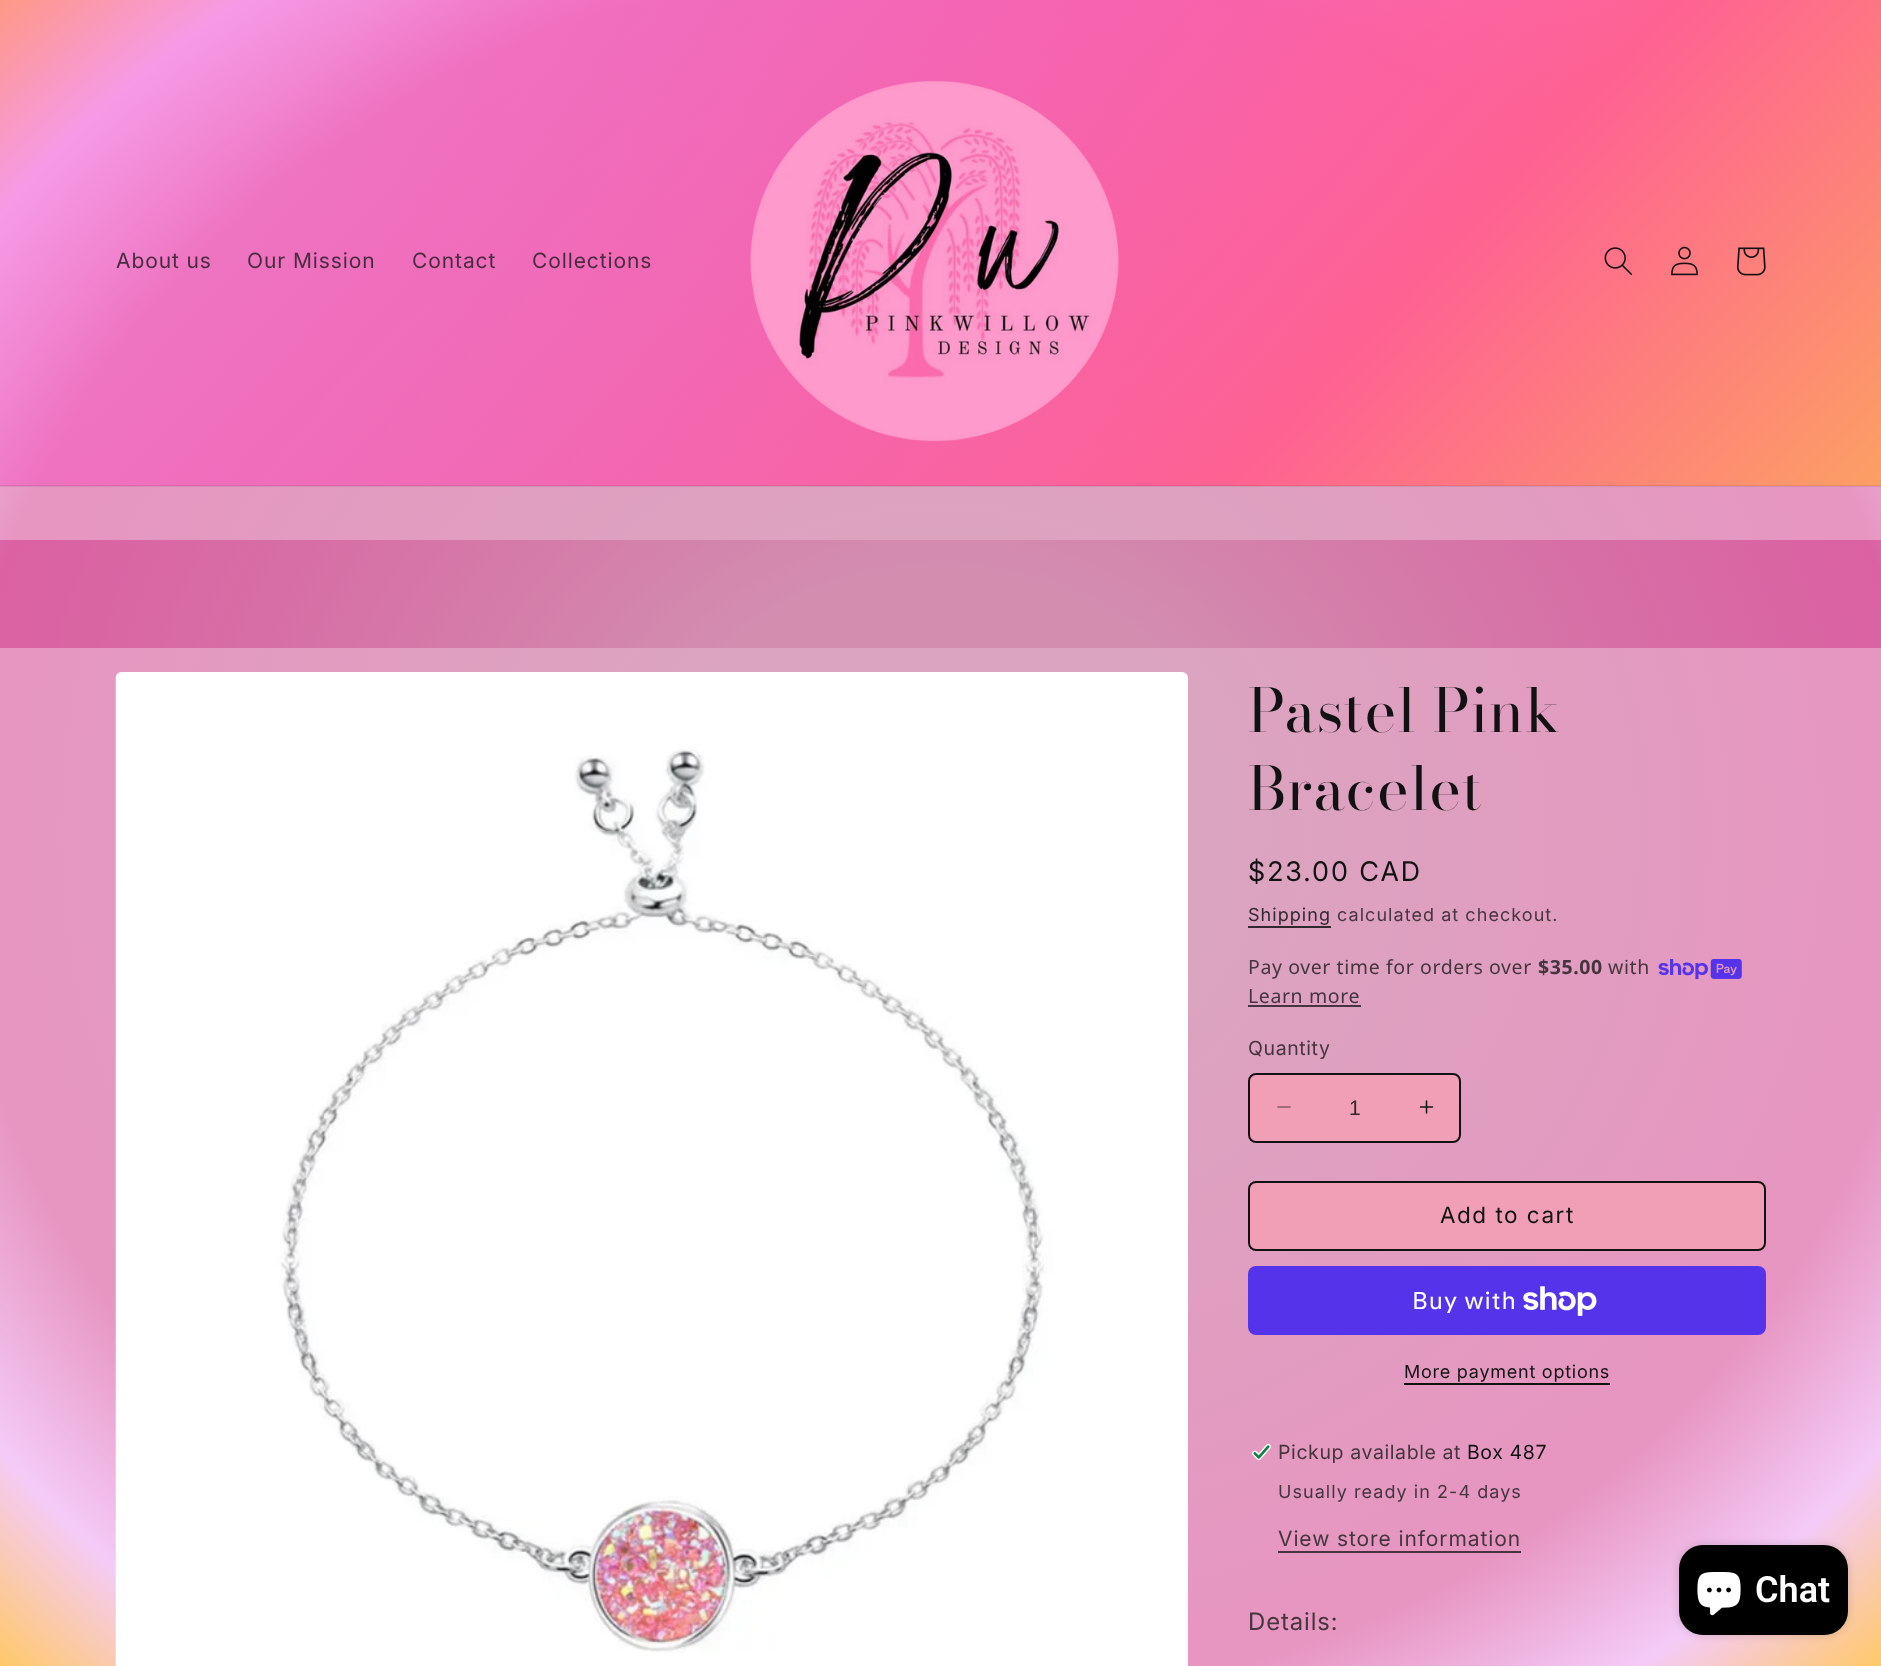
<!DOCTYPE html>
<meta charset="utf-8">
<style>body { margin: 0 } canvas { display: block }</style>
<canvas id="canvas" width="1881" height="1666"></canvas>
<script type="module">
  const canvas = document.getElementById("canvas");
  const ctx = canvas.getContext("2d");
  ctx.miterLimit = 4;
  ctx.fontKerning = "normal";
  async function loadImage(src) {
    const img = new Image();
    img.src = src;
    await img.decode();
    return img;
  }
  let gradient;

  ctx.fillStyle = "#ffffff";
  ctx.fillRect(0, 0, 1881, 1666);
  gradient = ctx.createRadialGradient(941, 940.48, 0, 941, 940.48, 1330);
  gradient.addColorStop(0.22, "#dba4bf");
  gradient.addColorStop(0.74, "#e795c1");
  gradient.addColorStop(0.88, "#f4cbf7");
  gradient.addColorStop(1, "#ffc968");
  ctx.fillStyle = gradient;
  ctx.beginPath();
  ctx.rect(0, 0, 1881, 1666);
  ctx.save();
  ctx.clip();
  ctx.scale(1, 1178 / 1330);
  ctx.fillRect(0, 0, 1881, 1881);
  ctx.restore();
  gradient = ctx.createRadialGradient(941, 940.48, 0, 941, 940.48, 1330);
  gradient.addColorStop(0.22, "#44373d");
  gradient.addColorStop(0.74, "#47333e");
  gradient.addColorStop(0.88, "#4b404b");
  gradient.addColorStop(1, "#4d4028");
  ctx.fillStyle = gradient;
  ctx.beginPath();
  ctx.rect(1278, 1551, 243, 2);
  ctx.save();
  ctx.clip();
  ctx.scale(1, 1178 / 1330);
  ctx.fillRect(0, 0, 1881, 1881);
  ctx.restore();
  gradient = ctx.createLinearGradient(22, -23, 1859, 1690);
  gradient.addColorStop(0.11, "rgba(250, 54, 194, 0.33)");
  gradient.addColorStop(0.49, "#fe6292");
  gradient.addColorStop(0.87, "#fadc36");
  ctx.fillStyle = gradient;
  ctx.fillRect(0, 0, 1881, 486);
  ctx.fillStyle = "rgba(18, 18, 18, 0.08)";
  ctx.fillRect(0, 485, 1881, 2);
  ctx.letterSpacing = "0.9px";
  ctx.font = "21px 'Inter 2'";
  ctx.fillStyle = "#492c3f";
  ctx.fillText("About us", 116, 268);
  ctx.fillText("Our Mission", 247, 268);
  ctx.fillText("Contact", 412, 268);
  ctx.fillText("Collections", 532, 268);
  ctx.drawImage(await loadImage("img1.png"), 750, 81, 369, 361);
  ctx.drawImage(await loadImage("img2.png"), 1604, 247, 28, 28);
  ctx.drawImage(await loadImage("img3.png"), 1671, 246, 27, 30);
  ctx.drawImage(await loadImage("img4.png"), 1737, 247, 29, 29);
  gradient = ctx.createRadialGradient(941, 940.48, 0, 941, 940.48, 1330);
  gradient.addColorStop(0.22, "rgba(207, 134, 170, 0.75)");
  gradient.addColorStop(0.74, "rgba(207, 47, 133, 0.51)");
  gradient.addColorStop(0.88, "rgba(239, 181, 244, 0.71)");
  gradient.addColorStop(1, "#ffc968");
  ctx.fillStyle = gradient;
  ctx.beginPath();
  ctx.rect(0, 540, 1881, 108);
  ctx.save();
  ctx.clip();
  ctx.scale(1, 1178 / 1330);
  ctx.fillRect(0, 0, 1881, 1881);
  ctx.restore();
  ctx.drawImage(await loadImage("img5.png"), 115, 672, 1073, 994);
  ctx.font = "60px Bodoni Moda";
  ctx.fillStyle = "#121212";
  ctx.fillText("Pastel Pink", 1248, 732);
  ctx.fillText("Bracelet", 1248, 810);
  ctx.letterSpacing = "2px";
  ctx.font = "27px Inter";
  ctx.fillText("$23.00 CAD", 1248, 881);
  ctx.letterSpacing = "1.05px";
  ctx.font = "18px 'Inter 2'";
  ctx.fillStyle = "#30282c";
  ctx.fillText("Shipping", 1248, 921);
  ctx.fillRect(1248, 926, 83, 2);
  ctx.fillStyle = "#45353d";
  ctx.fillText("calculated at checkout.", 1337, 921);
  ctx.letterSpacing = "0.6px";
  ctx.font = "19.5px Noto Sans";
  ctx.fillText("Pay over time for orders over", 1248, 974);
  ctx.font = "bold 19.5px Noto Sans";
  ctx.fillText("$35.00", 1538, 974);
  ctx.font = "19.5px Noto Sans";
  ctx.fillText("with", 1608, 974);
  ctx.drawImage(await loadImage("img6.png"), 1658, 959, 84, 21);
  ctx.fillText("Learn more", 1248, 1003);
  ctx.fillStyle = "#45363d";
  ctx.fillRect(1248, 1005, 113, 2);
  ctx.font = "19.5px 'Inter 2'";
  ctx.fillStyle = "#45353d";
  ctx.fillText("Quantity", 1248, 1055);
  ctx.fillStyle = "#f19fb6";
  ctx.beginPath();
  ctx.roundRect(1248, 1073, 213, 70, 8);
  ctx.fill();
  ctx.drawImage(await loadImage("img7.png"), 1277, 1106, 14, 2);
  ctx.drawImage(await loadImage("img8.png"), 1419, 1100, 15, 14);
  ctx.beginPath();
  ctx.roundRect(1249, 1074, 211, 68, 7);
  ctx.strokeStyle = "#121212";
  ctx.lineWidth = 2;
  ctx.stroke();
  ctx.letterSpacing = "0px";
  ctx.font = "21px Liberation Sans";
  ctx.fillStyle = "#30282c";
  ctx.fillText("1", 1349, 1115);
  ctx.fillStyle = "#f19fb6";
  ctx.beginPath();
  ctx.roundRect(1248, 1181, 518, 70, 8);
  ctx.fill();
  ctx.beginPath();
  ctx.roundRect(1249, 1182, 516, 68, 7);
  ctx.strokeStyle = "#f19fb6";
  ctx.stroke();
  ctx.beginPath();
  ctx.roundRect(1249, 1182, 516, 68, 7);
  ctx.strokeStyle = "#121212";
  ctx.stroke();
  ctx.letterSpacing = "1.5px";
  ctx.font = "22.5px 'Inter 2'";
  ctx.fillStyle = "#121212";
  ctx.fillText("Add to cart", 1440, 1223);
  ctx.fillStyle = "#5433eb";
  ctx.beginPath();
  ctx.roundRect(1248, 1266, 518, 69, 8);
  ctx.fill();
  ctx.letterSpacing = "0.9px";
  ctx.font = "24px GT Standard";
  ctx.fillStyle = "#ffffff";
  ctx.fillText("Buy with", 1412, 1309);
  ctx.drawImage(await loadImage("img9.png"), 1523, 1286, 74, 30);
  ctx.letterSpacing = "0.75px";
  ctx.font = "18px 'Inter 2'";
  ctx.fillStyle = "#121212";
  ctx.fillText("More payment options", 1404, 1378);
  ctx.fillRect(1404, 1383, 206, 2);
  ctx.drawImage(await loadImage("img10.png"), 1252, 1443, 19, 18);
  ctx.letterSpacing = "0.6px";
  ctx.font = "19.5px 'Inter 2'";
  ctx.fillStyle = "#45353d";
  ctx.fillText("Pickup available at", 1278, 1459);
  ctx.fillStyle = "#121212";
  ctx.fillText("Box 487", 1467, 1459);
  ctx.letterSpacing = "1.05px";
  ctx.font = "18px 'Inter 2'";
  ctx.fillStyle = "#45353d";
  ctx.fillText("Usually ready in 2-4 days", 1278, 1498);
  ctx.letterSpacing = "0.9px";
  ctx.font = "21px 'Inter 2'";
  ctx.fillText("View store information", 1278, 1546);
  ctx.font = "24px 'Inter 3'";
  ctx.fillText("Details:", 1248, 1630);
  ctx.fillStyle = "rgba(0, 0, 0, 0.15)";
  ctx.filter = "blur(4px)";
  ctx.beginPath();
  ctx.roundRect(1679, 1545, 169, 90, 24);
  ctx.fill();
  ctx.filter = "none";
  ctx.fillStyle = "#000000";
  ctx.beginPath();
  ctx.roundRect(1679, 1545, 169, 90, 24);
  ctx.fill();
  ctx.drawImage(await loadImage("img11.png"), 1697, 1572, 44, 44);
  ctx.letterSpacing = "0px";
  ctx.font = "600 36px Roboto";
  ctx.fillStyle = "#ffffff";
  ctx.fillText("Chat", 1755, 1602);
</script>
